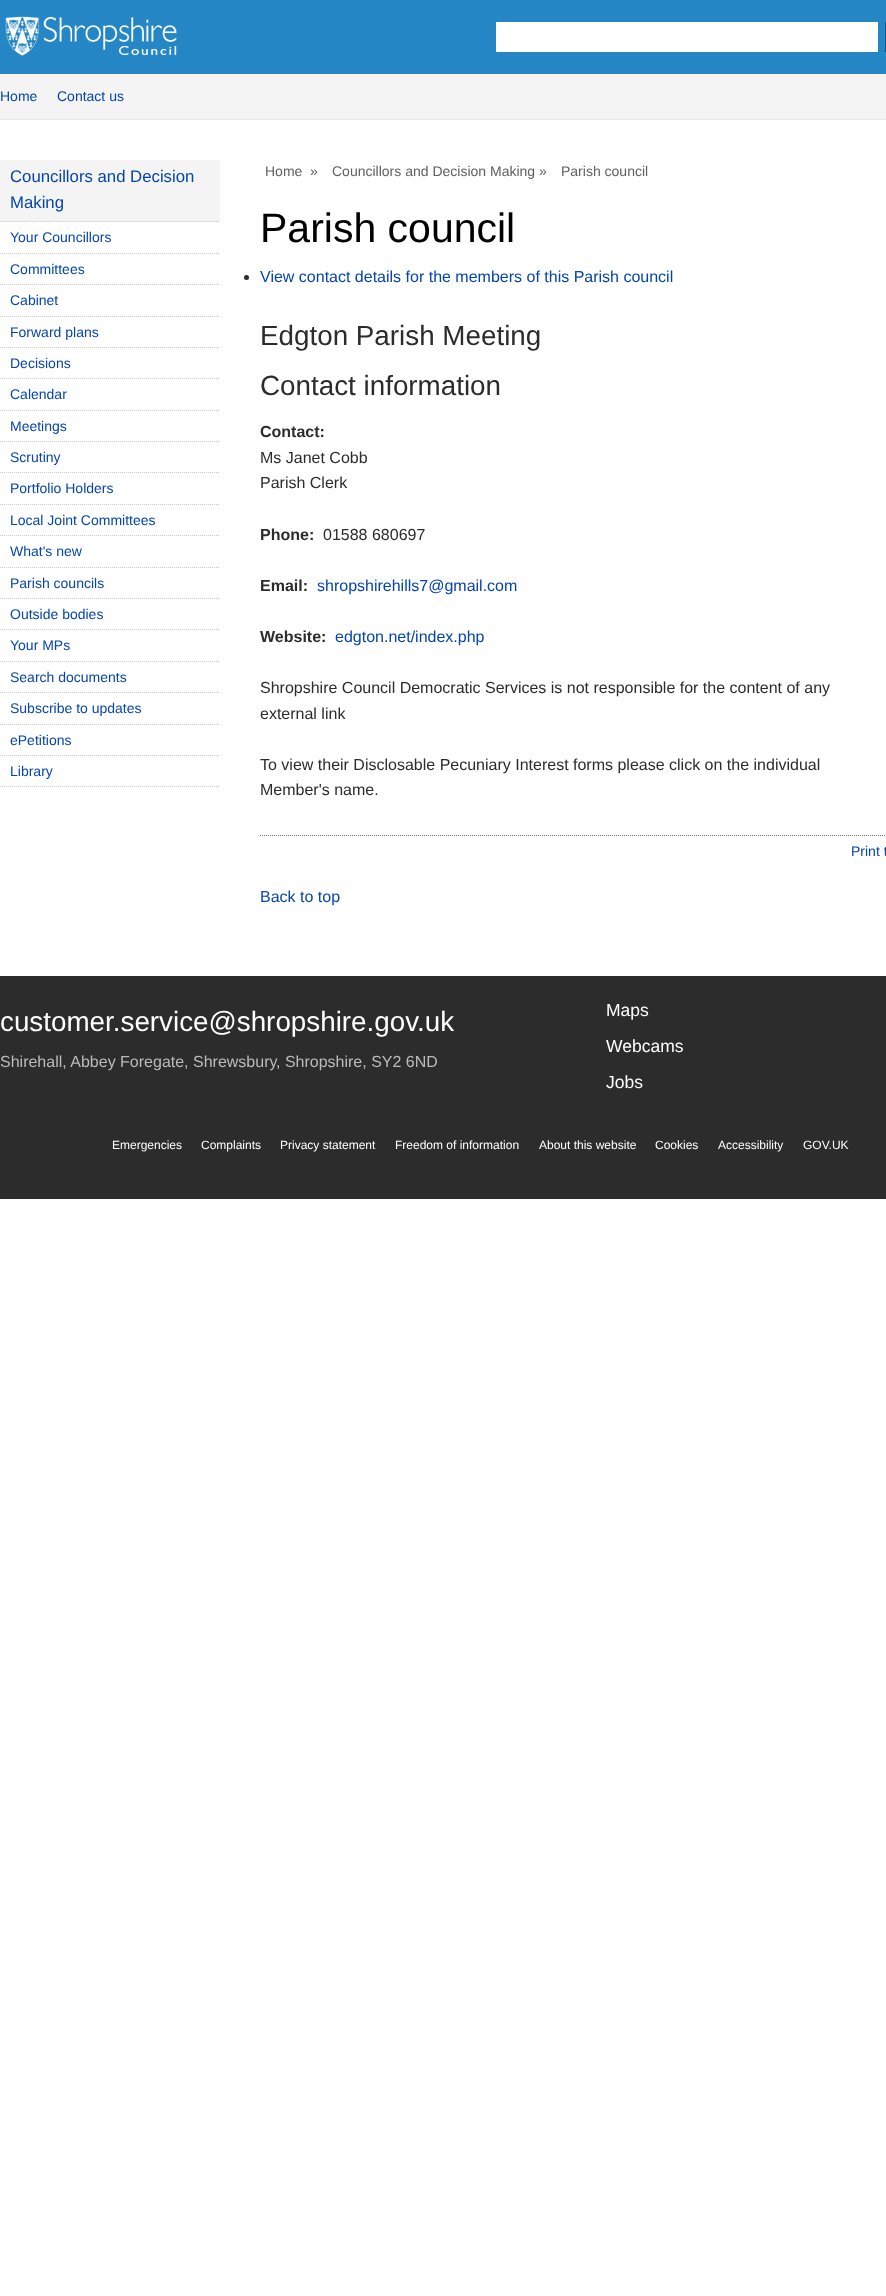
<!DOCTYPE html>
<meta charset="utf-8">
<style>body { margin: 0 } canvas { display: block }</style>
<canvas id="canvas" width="886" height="2296"></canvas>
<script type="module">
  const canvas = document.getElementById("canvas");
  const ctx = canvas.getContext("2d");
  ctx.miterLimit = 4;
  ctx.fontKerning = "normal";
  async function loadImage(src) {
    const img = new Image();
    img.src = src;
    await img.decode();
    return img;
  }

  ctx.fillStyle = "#ffffff";
  ctx.fillRect(0, 0, 886, 2296);
  ctx.fillStyle = "#2586c5";
  ctx.fillRect(0, 0, 886, 74);
  ctx.drawImage(await loadImage("img1.png"), 0, 10, 182, 48);
  ctx.fillStyle = "#ffffff";
  ctx.fillRect(496, 22, 382, 30);
  ctx.fillStyle = "#005785";
  ctx.fillRect(885, 22, 1, 30);
  ctx.fillStyle = "#f4f4f4";
  ctx.fillRect(0, 75, 886, 44);
  ctx.fillStyle = "#e9e9e9";
  ctx.fillRect(0, 119, 886, 1);
  ctx.font = "14px Liberation Sans";
  ctx.fillStyle = "#0645ad";
  ctx.fillText("Home", 0, 101);
  ctx.fillText("Contact us", 57, 101);
  ctx.fillStyle = "#f4f4f4";
  ctx.fillRect(0, 160, 220, 62);
  ctx.beginPath();
  ctx.moveTo(0, 221.5);
  ctx.lineTo(220, 221.5);
  ctx.strokeStyle = "#cccccc";
  ctx.setLineDash([1, 1]);
  ctx.stroke();
  ctx.font = "16.75px Liberation Sans";
  ctx.fillStyle = "#0645ad";
  ctx.fillText("Councillors and Decision", 10, 182);
  ctx.fillText("Making", 10, 208);
  ctx.beginPath();
  ctx.moveTo(0, 253.5);
  ctx.lineTo(220, 253.5);
  ctx.stroke();
  ctx.font = "14px Liberation Sans";
  ctx.fillText("Your Councillors", 10, 242);
  ctx.beginPath();
  ctx.moveTo(0, 284.5);
  ctx.lineTo(220, 284.5);
  ctx.stroke();
  ctx.fillText("Committees", 10, 274);
  ctx.beginPath();
  ctx.moveTo(0, 316.5);
  ctx.lineTo(220, 316.5);
  ctx.stroke();
  ctx.fillText("Cabinet", 10, 305);
  ctx.beginPath();
  ctx.moveTo(0, 347.5);
  ctx.lineTo(220, 347.5);
  ctx.stroke();
  ctx.fillText("Forward plans", 10, 337);
  ctx.beginPath();
  ctx.moveTo(0, 378.5);
  ctx.lineTo(220, 378.5);
  ctx.stroke();
  ctx.fillText("Decisions", 10, 368);
  ctx.beginPath();
  ctx.moveTo(0, 410.5);
  ctx.lineTo(220, 410.5);
  ctx.stroke();
  ctx.fillText("Calendar", 10, 399);
  ctx.beginPath();
  ctx.moveTo(0, 441.5);
  ctx.lineTo(220, 441.5);
  ctx.stroke();
  ctx.fillText("Meetings", 10, 431);
  ctx.beginPath();
  ctx.moveTo(0, 472.5);
  ctx.lineTo(220, 472.5);
  ctx.stroke();
  ctx.fillText("Scrutiny", 10, 462);
  ctx.beginPath();
  ctx.moveTo(0, 504.5);
  ctx.lineTo(220, 504.5);
  ctx.stroke();
  ctx.fillText("Portfolio Holders", 10, 493);
  ctx.beginPath();
  ctx.moveTo(0, 535.5);
  ctx.lineTo(220, 535.5);
  ctx.stroke();
  ctx.fillText("Local Joint Committees", 10, 525);
  ctx.beginPath();
  ctx.moveTo(0, 567.5);
  ctx.lineTo(220, 567.5);
  ctx.stroke();
  ctx.fillText("What's new", 10, 556);
  ctx.beginPath();
  ctx.moveTo(0, 598.5);
  ctx.lineTo(220, 598.5);
  ctx.stroke();
  ctx.fillText("Parish councils", 10, 588);
  ctx.beginPath();
  ctx.moveTo(0, 629.5);
  ctx.lineTo(220, 629.5);
  ctx.stroke();
  ctx.fillText("Outside bodies", 10, 619);
  ctx.beginPath();
  ctx.moveTo(0, 661.5);
  ctx.lineTo(220, 661.5);
  ctx.stroke();
  ctx.fillText("Your MPs", 10, 650);
  ctx.beginPath();
  ctx.moveTo(0, 692.5);
  ctx.lineTo(220, 692.5);
  ctx.stroke();
  ctx.fillText("Search documents", 10, 682);
  ctx.beginPath();
  ctx.moveTo(0, 724.5);
  ctx.lineTo(220, 724.5);
  ctx.stroke();
  ctx.fillText("Subscribe to updates", 10, 713);
  ctx.beginPath();
  ctx.moveTo(0, 755.5);
  ctx.lineTo(220, 755.5);
  ctx.stroke();
  ctx.fillText("ePetitions", 10, 745);
  ctx.beginPath();
  ctx.moveTo(0, 786.5);
  ctx.lineTo(220, 786.5);
  ctx.stroke();
  ctx.fillText("Library", 10, 776);
  ctx.fillStyle = "#5f5f5f";
  ctx.fillText("Home", 265, 176);
  ctx.fillText("»", 310, 176);
  ctx.fillText("Councillors and Decision Making »", 332, 176);
  ctx.fillText("Parish council", 561, 176);
  ctx.font = "41px Liberation Sans";
  ctx.fillStyle = "#000000";
  ctx.fillText("Parish council", 260, 242);
  ctx.fillStyle = "#2c2c2c";
  ctx.beginPath();
  ctx.arc(246.5, 277.5, 2.5, 0, Math.PI * 2);
  ctx.fill();
  ctx.font = "16px Liberation Sans";
  ctx.fillStyle = "#0645ad";
  ctx.fillText("View contact details for the members of this Parish council", 260, 282);
  ctx.font = "27.8px Liberation Sans";
  ctx.fillStyle = "#2c2c2c";
  ctx.fillText("Edgton Parish Meeting", 260, 345);
  ctx.fillText("Contact information", 260, 395);
  ctx.font = "bold 16px Liberation Sans";
  ctx.fillText("Contact:", 260, 437);
  ctx.font = "16px Liberation Sans";
  ctx.fillText("Ms Janet Cobb", 260, 463);
  ctx.fillText("Parish Clerk", 260, 488);
  ctx.font = "bold 16px Liberation Sans";
  ctx.fillText("Phone:", 260, 540);
  ctx.font = "16px Liberation Sans";
  ctx.fillText("01588 680697", 323, 540);
  ctx.font = "bold 16px Liberation Sans";
  ctx.fillText("Email:", 260, 591);
  ctx.font = "16px Liberation Sans";
  ctx.fillStyle = "#0645ad";
  ctx.fillText("shropshirehills7@gmail.com", 317, 591);
  ctx.font = "bold 16px Liberation Sans";
  ctx.fillStyle = "#2c2c2c";
  ctx.fillText("Website:", 260, 642);
  ctx.font = "16px Liberation Sans";
  ctx.fillStyle = "#0645ad";
  ctx.fillText("edgton.net/index.php", 335, 642);
  ctx.fillStyle = "#2c2c2c";
  ctx.fillText("Shropshire Council Democratic Services is not responsible for the content of any", 260, 693);
  ctx.fillText("external link", 260, 719);
  ctx.fillText("To view their Disclosable Pecuniary Interest forms please click on the individual", 260, 770);
  ctx.fillText("Member's name.", 260, 795);
  ctx.beginPath();
  ctx.moveTo(260, 835.5);
  ctx.lineTo(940, 835.5);
  ctx.strokeStyle = "#777777";
  ctx.stroke();
  ctx.font = "14px Liberation Sans";
  ctx.fillStyle = "#0645ad";
  ctx.fillText("Print t", 851, 856);
  ctx.font = "16px Liberation Sans";
  ctx.fillText("Back to top", 260, 902);
  ctx.fillStyle = "#2c2c2c";
  ctx.fillRect(0, 976, 886, 223);
  ctx.font = "27.8px Liberation Sans";
  ctx.fillStyle = "#ffffff";
  ctx.fillText("customer.service@shropshire.gov.uk", 0, 1031);
  ctx.font = "16px Liberation Sans";
  ctx.fillStyle = "#bbbbbb";
  ctx.fillText("Shirehall, Abbey Foregate, Shrewsbury", 0, 1067);
  ctx.fillText(", Shropshire, SY2 6ND", 276, 1067);
  ctx.font = "17.5px Liberation Sans";
  ctx.fillStyle = "#ffffff";
  ctx.fillText("Maps", 606, 1016);
  ctx.fillText("Webcams", 606, 1052);
  ctx.fillText("Jobs", 606, 1088);
  ctx.font = "12px Liberation Sans";
  ctx.fillText("Emergencies", 112, 1149);
  ctx.fillText("Complaints", 201, 1149);
  ctx.fillText("Privacy statement", 280, 1149);
  ctx.fillText("Freedom of information", 395, 1149);
  ctx.fillText("About this website", 539, 1149);
  ctx.fillText("Cookies", 655, 1149);
  ctx.fillText("Accessibility", 718, 1149);
  ctx.fillText("GOV.UK", 803, 1149);
</script>
